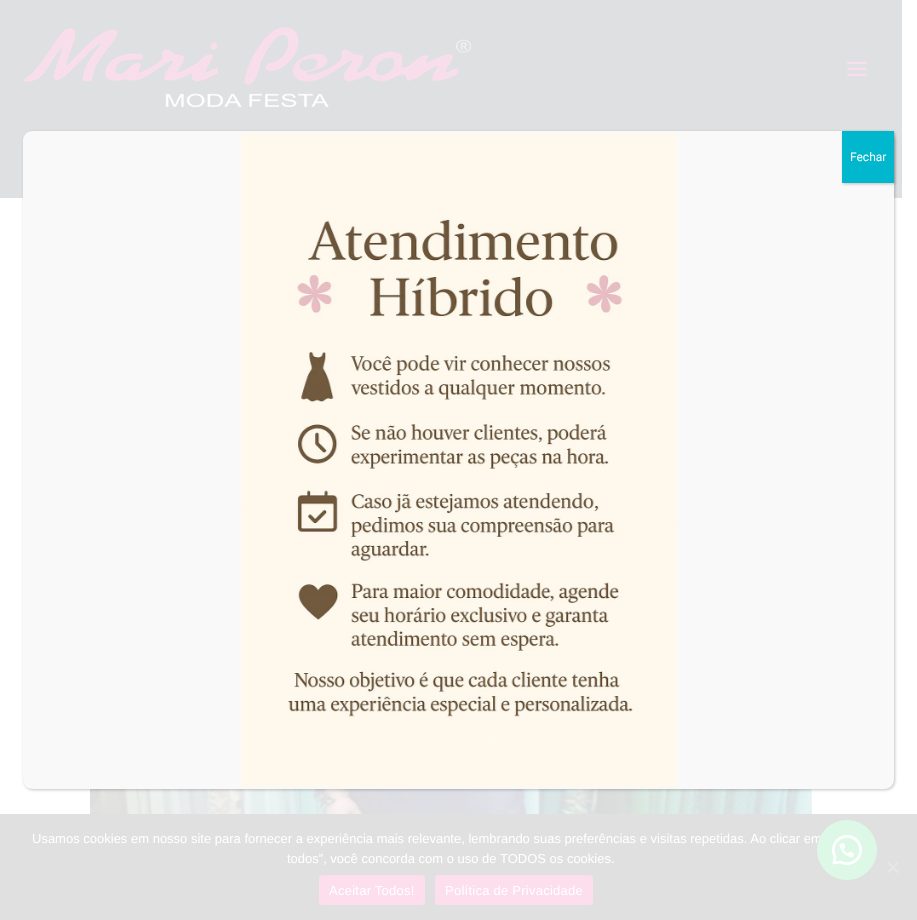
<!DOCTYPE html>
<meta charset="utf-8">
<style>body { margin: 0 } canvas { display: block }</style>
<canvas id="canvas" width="917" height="920"></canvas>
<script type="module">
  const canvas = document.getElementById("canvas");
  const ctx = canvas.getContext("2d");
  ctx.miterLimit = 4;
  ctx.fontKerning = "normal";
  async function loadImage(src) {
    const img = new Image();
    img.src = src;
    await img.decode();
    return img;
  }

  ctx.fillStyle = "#ffffff";
  ctx.fillRect(0, 0, 917, 920);
  ctx.fillStyle = "#dfe0e2";
  ctx.fillRect(0, 0, 902, 198);
  ctx.drawImage(await loadImage("img1.png"), 23, 27, 448, 80);
  ctx.drawImage(await loadImage("img2.png"), 847, 61, 20, 15);
  ctx.drawImage(await loadImage("img3.png"), 90, 789, 722, 25);
  ctx.fillStyle = "rgba(2, 2, 2, 0.23)";
  ctx.filter = "blur(1.5px)";
  ctx.beginPath();
  ctx.roundRect(24, 132, 871, 658, 9);
  ctx.fill();
  ctx.filter = "none";
  ctx.fillStyle = "#f9f9f9";
  ctx.beginPath();
  ctx.roundRect(23, 131, 871, 658, 9);
  ctx.fill();
  ctx.drawImage(await loadImage("img4.png"), 241, 133, 436, 654);
  ctx.fillStyle = "rgba(2, 2, 2, 0.23)";
  ctx.filter = "blur(1.5px)";
  ctx.beginPath();
  ctx.rect(843, 132, 52, 52);
  ctx.fill();
  ctx.filter = "none";
  ctx.fillStyle = "#00b7cd";
  ctx.fillRect(842, 131, 52, 52);
  ctx.font = "12px Roboto";
  ctx.fillStyle = "#ffffff";
  ctx.fillText("Fechar", 850, 161);
  ctx.fillStyle = "#e0e0e1";
  ctx.fillRect(0, 814, 917, 106);
  ctx.font = "13px Liberation Sans";
  ctx.fillStyle = "#ffffff";
  ctx.fillText("Usamos cookies em nosso site para fornecer a experiência mais relevante, lembrando suas preferências e visitas repetidas. Ao clicar em", 32, 843);
  ctx.fillText("todos”, você concorda com o uso de TODOS os cookies.", 287, 863);
  ctx.fillStyle = "#e6e6e7";
  ctx.beginPath();
  ctx.moveTo(897.5, 861.5);
  ctx.lineTo(899, 863);
  ctx.lineTo(888.5, 873.5);
  ctx.lineTo(887, 872);
  ctx.closePath();
  ctx.fill();
  ctx.beginPath();
  ctx.moveTo(887, 863);
  ctx.lineTo(888.5, 861.5);
  ctx.lineTo(899, 872);
  ctx.lineTo(897.5, 873.5);
  ctx.closePath();
  ctx.fill();
  ctx.fillStyle = "#fcdeec";
  ctx.beginPath();
  ctx.roundRect(319, 875, 106, 30, 3);
  ctx.fill();
  ctx.letterSpacing = "0.25px";
  ctx.fillStyle = "#ffffff";
  ctx.fillText("Aceitar Todos!", 329, 895);
  ctx.fillStyle = "#fcdeec";
  ctx.beginPath();
  ctx.roundRect(435, 875, 158, 30, 3);
  ctx.fill();
  ctx.fillStyle = "#ffffff";
  ctx.fillText("Política de Privacidade", 445, 895);
  ctx.fillStyle = "#def8e8";
  ctx.beginPath();
  ctx.arc(847, 850, 30, 0, Math.PI * 2);
  ctx.fill();
  ctx.drawImage(await loadImage("img5.png"), 832, 835, 30, 30);
</script>
